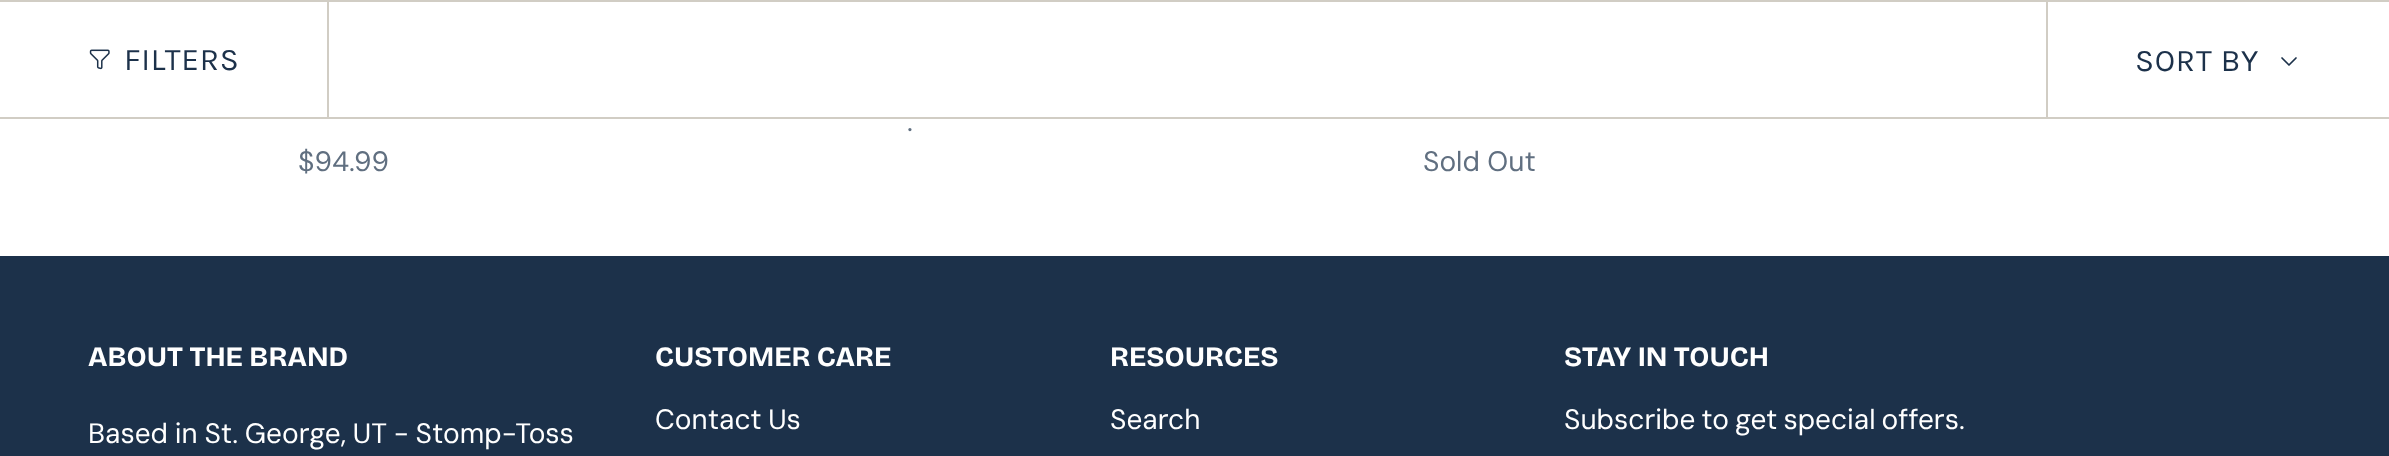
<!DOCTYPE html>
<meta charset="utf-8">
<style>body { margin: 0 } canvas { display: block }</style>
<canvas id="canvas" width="2389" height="456"></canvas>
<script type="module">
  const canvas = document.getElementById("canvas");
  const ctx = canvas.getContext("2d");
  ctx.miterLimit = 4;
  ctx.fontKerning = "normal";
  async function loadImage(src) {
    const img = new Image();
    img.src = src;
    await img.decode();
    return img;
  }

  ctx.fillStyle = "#ffffff";
  ctx.fillRect(0, 0, 2389, 456);
  ctx.fillStyle = "#d1cdc4";
  ctx.fillRect(0, 0, 2389, 2);
  ctx.fillRect(0, 117, 2389, 2);
  ctx.fillRect(327, 2, 2, 115);
  ctx.drawImage(await loadImage("img1.png"), 89, 49, 21, 21);
  ctx.letterSpacing = "0.75px";
  ctx.font = "31.5px Karla";
  ctx.fillStyle = "#1c314a";
  ctx.fillText("FILTERS", 124, 70);
  ctx.fillStyle = "#d1cdc4";
  ctx.fillRect(2046, 2, 2, 115);
  ctx.fillStyle = "#1c314a";
  ctx.fillText("SORT BY", 2135, 71);
  ctx.beginPath();
  ctx.moveTo(2282, 58);
  ctx.lineTo(2289, 65);
  ctx.lineTo(2296, 58);
  ctx.strokeStyle = "#1c314a";
  ctx.lineWidth = 1.7;
  ctx.lineCap = "round";
  ctx.lineJoin = "round";
  ctx.stroke();
  ctx.letterSpacing = "0px";
  ctx.font = "28px DM Sans";
  ctx.fillStyle = "#606f80";
  ctx.fillText(".", 907, 131);
  ctx.fillText("$94.99", 298, 171);
  ctx.fillText("Sold Out", 1423, 171);
  ctx.fillStyle = "#1c314a";
  ctx.fillRect(0, 256, 2389, 200);
  ctx.font = "bold 28px Bricolage Grotesque";
  ctx.fillStyle = "#ffffff";
  ctx.fillText("ABOUT THE BRAND", 88, 366);
  ctx.wordSpacing = "-0.75px";
  ctx.font = "28px DM Sans";
  ctx.fillText("Based in St. George, UT - Stomp-Toss", 88, 443);
  ctx.wordSpacing = "0px";
  ctx.font = "bold 28px Bricolage Grotesque";
  ctx.fillText("CUSTOMER CARE", 655, 366);
  ctx.wordSpacing = "-1px";
  ctx.font = "28px DM Sans";
  ctx.fillText("Contact Us", 655, 429);
  ctx.wordSpacing = "0px";
  ctx.font = "bold 28px Bricolage Grotesque";
  ctx.fillText("RESOURCES", 1110, 366);
  ctx.font = "28px DM Sans";
  ctx.fillText("Search", 1110, 429);
  ctx.font = "bold 28px Bricolage Grotesque";
  ctx.fillText("STAY IN TOUCH", 1564, 366);
  ctx.wordSpacing = "-1.5px";
  ctx.font = "28px DM Sans";
  ctx.fillText("Subscribe to get special offers.", 1564, 429);
</script>
